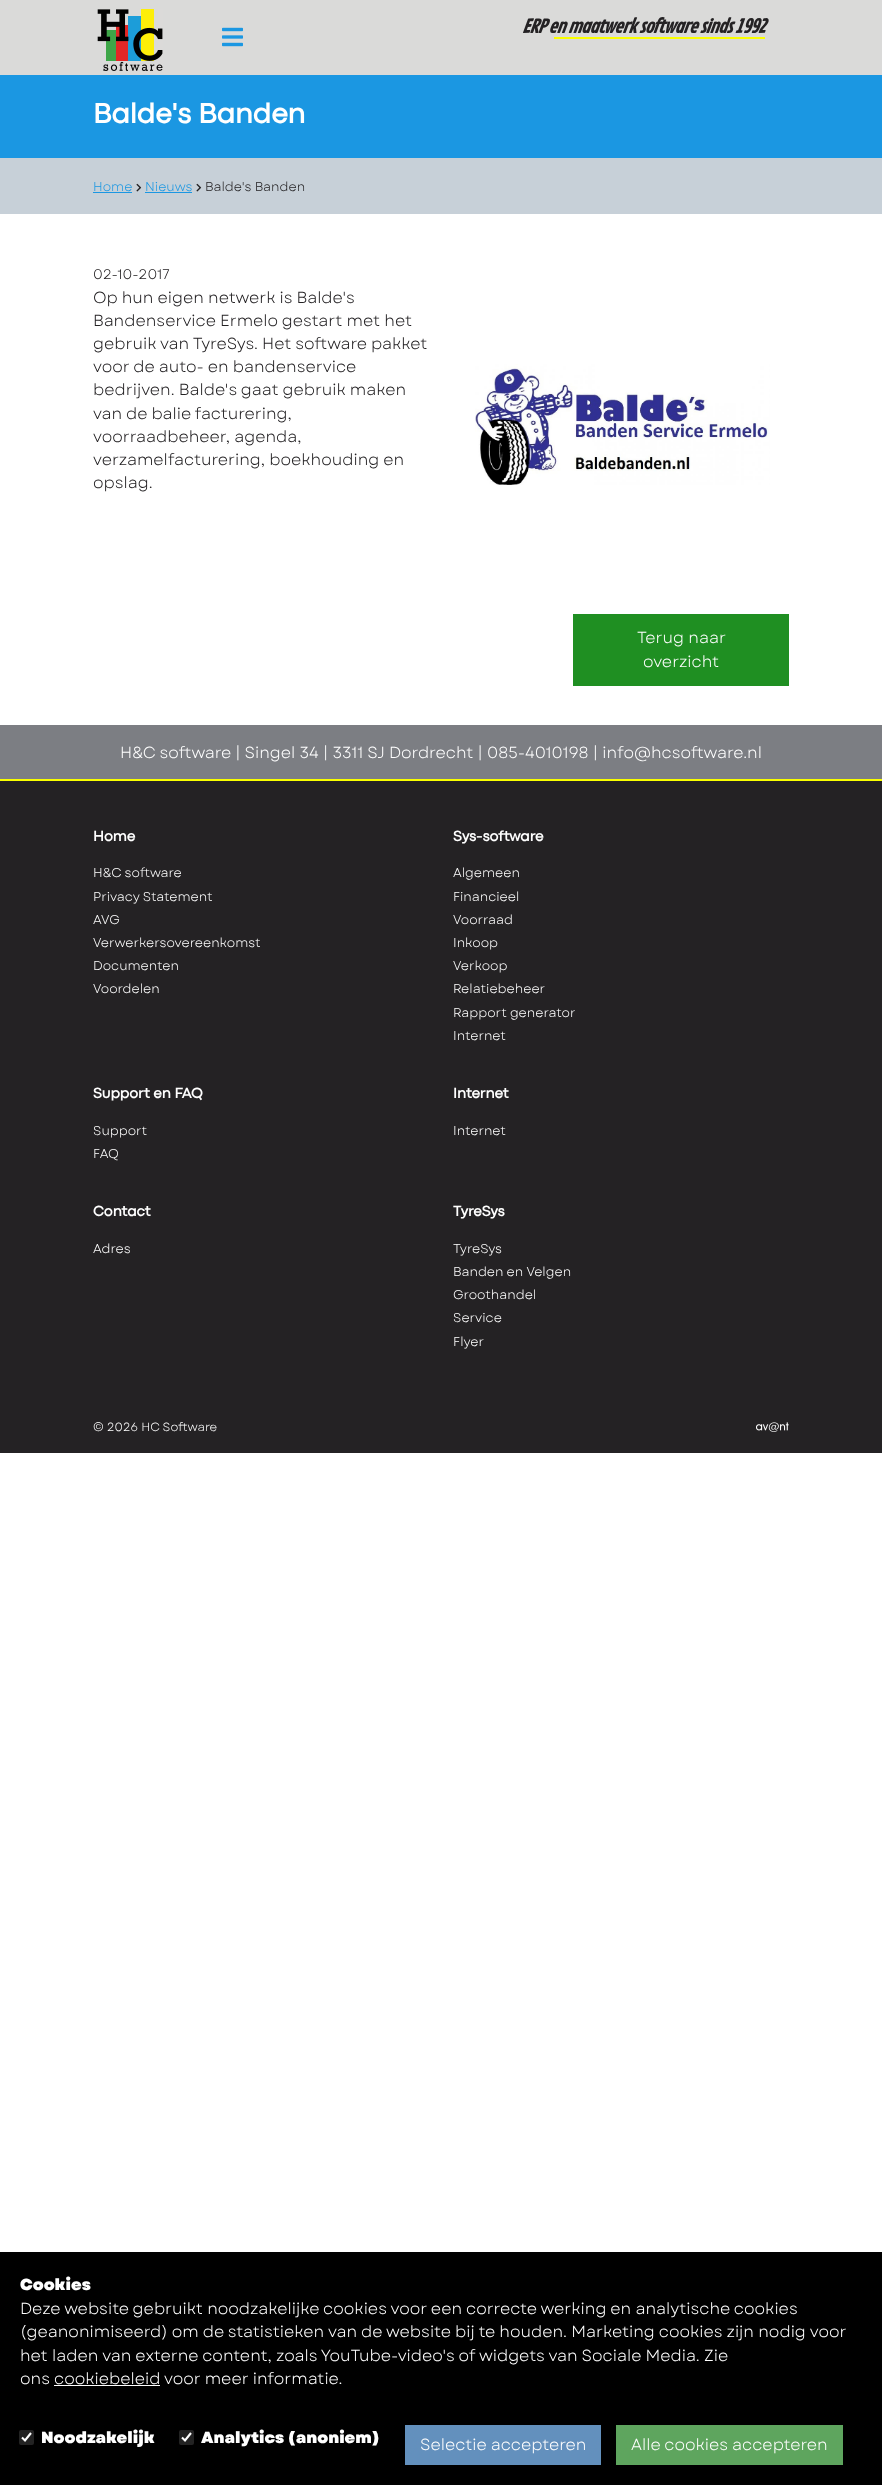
<!DOCTYPE html>
<meta charset="utf-8">
<style>body { margin: 0 } canvas { display: block }</style>
<canvas id="canvas" width="882" height="2485"></canvas>
<script type="module">
  const canvas = document.getElementById("canvas");
  const ctx = canvas.getContext("2d");
  ctx.miterLimit = 4;
  ctx.fontKerning = "normal";
  async function loadImage(src) {
    const img = new Image();
    img.src = src;
    await img.decode();
    return img;
  }

  ctx.fillStyle = "#ffffff";
  ctx.fillRect(0, 0, 882, 2485);
  ctx.fillStyle = "#dadad9";
  ctx.fillRect(0, 0, 882, 75);
  ctx.drawImage(await loadImage("img1.png"), 97, 9, 66, 62);
  ctx.drawImage(await loadImage("img2.png"), 222, 27, 21, 20);
  ctx.letterSpacing = "-1px";
  ctx.font = "italic bold 18.4px Contrail One";
  ctx.fillStyle = "#242224";
  ctx.fillText("ERP en maatwerk software sinds 1992", 522, 33);
  ctx.fillStyle = "#f9fe00";
  ctx.fillRect(554, 37, 211, 2);
  ctx.fillStyle = "#1b97e2";
  ctx.fillRect(0, 75, 882, 83);
  ctx.letterSpacing = "0px";
  ctx.font = "bold 28.75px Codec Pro";
  ctx.fillStyle = "#ffffff";
  ctx.fillText("Balde's Banden", 93, 123);
  ctx.fillStyle = "#c7d0d8";
  ctx.fillRect(0, 158, 882, 56);
  ctx.font = "12.75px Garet";
  ctx.fillStyle = "#1b97e2";
  ctx.fillText("Home", 93, 191);
  ctx.fillRect(93, 192, 39, 1);
  ctx.drawImage(await loadImage("img3.png"), 136, 183, 6, 9);
  ctx.fillText("Nieuws", 145, 191);
  ctx.fillRect(145, 192, 47, 1);
  ctx.drawImage(await loadImage("img3.png"), 196, 183, 6, 9);
  ctx.fillStyle = "#242224";
  ctx.fillText("Balde's Banden", 205, 191);
  ctx.font = "14px Garet";
  ctx.fillText("02-10-2017", 93, 279);
  ctx.font = "16px Garet";
  ctx.fillText("Op hun eigen netwerk is Balde's", 93, 303);
  ctx.fillText("Bandenservice Ermelo gestart met het", 93, 326);
  ctx.fillText("gebruik van TyreSys. Het software pakket", 93, 349);
  ctx.fillText("voor de auto- en bandenservice", 93, 372);
  ctx.fillText("bedrijven. Balde's gaat gebruik maken", 93, 395);
  ctx.fillText("van de balie facturering,", 93, 419);
  ctx.fillText("voorraadbeheer, agenda,", 93, 442);
  ctx.fillText("verzamelfacturering, boekhouding en", 93, 465);
  ctx.fillText("opslag.", 93, 488);
  ctx.drawImage(await loadImage("img4.png"), 475, 364, 295, 121);
  ctx.fillStyle = "#1f8f22";
  ctx.fillRect(573, 614, 216, 72);
  ctx.fillStyle = "#ffffff";
  ctx.fillText("Terug naar", 637, 643);
  ctx.fillText("overzicht", 643, 667);
  ctx.fillStyle = "#7c7e83";
  ctx.fillRect(0, 725, 882, 54);
  ctx.fillStyle = "#ffffff";
  ctx.fillText("H&C software | Singel 34 | 3311 SJ Dordrecht | 085-4010198 | info@hcsoftware.nl", 120, 758);
  ctx.fillStyle = "#242224";
  ctx.fillRect(0, 781, 882, 672);
  ctx.fillStyle = "#f9fe00";
  ctx.fillRect(0, 779, 882, 2);
  ctx.font = "bold 14.75px Codec Pro";
  ctx.fillStyle = "#ffffff";
  ctx.fillText("Home", 93, 841);
  ctx.font = "12.75px Garet";
  ctx.fillText("H&C software", 93, 877);
  ctx.fillText("Privacy Statement", 93, 901);
  ctx.fillText("AVG", 93, 924);
  ctx.fillText("Verwerkersovereenkomst", 93, 947);
  ctx.fillText("Documenten", 93, 970);
  ctx.fillText("Voordelen", 93, 993);
  ctx.font = "bold 14.75px Codec Pro";
  ctx.fillText("Sys-software", 453, 841);
  ctx.font = "12.75px Garet";
  ctx.fillText("Algemeen", 453, 877);
  ctx.fillText("Financieel", 453, 901);
  ctx.fillText("Voorraad", 453, 924);
  ctx.fillText("Inkoop", 453, 947);
  ctx.fillText("Verkoop", 453, 970);
  ctx.fillText("Relatiebeheer", 453, 993);
  ctx.fillText("Rapport generator", 453, 1017);
  ctx.fillText("Internet", 453, 1040);
  ctx.font = "bold 14.75px Codec Pro";
  ctx.fillText("Support en FAQ", 93, 1098);
  ctx.font = "12.75px Garet";
  ctx.fillText("Support", 93, 1135);
  ctx.fillText("FAQ", 93, 1158);
  ctx.font = "bold 14.75px Codec Pro";
  ctx.fillText("Internet", 453, 1098);
  ctx.font = "12.75px Garet";
  ctx.fillText("Internet", 453, 1135);
  ctx.font = "bold 14.75px Codec Pro";
  ctx.fillText("Contact", 93, 1216);
  ctx.font = "12.75px Garet";
  ctx.fillText("Adres", 93, 1253);
  ctx.font = "bold 14.75px Codec Pro";
  ctx.fillText("TyreSys", 453, 1216);
  ctx.font = "12.75px Garet";
  ctx.fillText("TyreSys", 453, 1253);
  ctx.fillText("Banden en Velgen", 453, 1276);
  ctx.fillText("Groothandel", 453, 1299);
  ctx.fillText("Service", 453, 1322);
  ctx.fillText("Flyer", 453, 1346);
  ctx.font = "11.9px Garet";
  ctx.fillText("© 2026 HC Software", 93, 1431);
  ctx.drawImage(await loadImage("img5.png"), 756, 1422, 33, 10);
  ctx.fillStyle = "#000000";
  ctx.fillRect(0, 2252, 882, 233);
  ctx.font = "900 16px Garet";
  ctx.fillStyle = "#ffffff";
  ctx.fillText("Cookies", 20, 2290);
  ctx.font = "16px Garet";
  ctx.fillText("Deze website gebruikt noodzakelijke cookies voor een correcte werking en analytische cookies", 20, 2314);
  ctx.fillText("(geanonimiseerd) om de statistieken van de website bij te houden. Marketing cookies zijn nodig voor", 20, 2337);
  ctx.fillText("het laden van externe content, zoals YouTube-video's of widgets van Sociale Media. Zie", 20, 2361);
  ctx.fillText("ons", 20, 2384);
  ctx.fillText("cookiebeleid", 54, 2384);
  ctx.fillRect(54, 2385, 106, 1);
  ctx.fillText("voor meer informatie.", 164, 2384);
  ctx.fillStyle = "#232323";
  ctx.beginPath();
  ctx.roundRect(19, 2430, 15, 15, 2);
  ctx.fill();
  ctx.beginPath();
  ctx.moveTo(22, 2437.5);
  ctx.lineTo(25, 2440.5);
  ctx.lineTo(31, 2433);
  ctx.strokeStyle = "#ffffff";
  ctx.lineWidth = 2.1;
  ctx.stroke();
  ctx.font = "900 16px Garet";
  ctx.fillStyle = "#ffffff";
  ctx.fillText("Noodzakelijk", 41, 2443);
  ctx.fillStyle = "#232323";
  ctx.beginPath();
  ctx.roundRect(179, 2430, 15, 15, 2);
  ctx.fill();
  ctx.beginPath();
  ctx.moveTo(182, 2437.5);
  ctx.lineTo(185, 2440.5);
  ctx.lineTo(191, 2433);
  ctx.stroke();
  ctx.fillStyle = "#ffffff";
  ctx.fillText("Analytics (anoniem)", 201, 2443);
  ctx.fillStyle = "#6390bd";
  ctx.fillRect(405, 2425, 196, 40);
  ctx.font = "16px Garet";
  ctx.fillStyle = "#ffffff";
  ctx.fillText("Selectie accepteren", 420, 2450);
  ctx.fillStyle = "#5ea55e";
  ctx.fillRect(616, 2425, 227, 40);
  ctx.fillStyle = "#ffffff";
  ctx.fillText("Alle cookies accepteren", 631, 2450);
</script>
